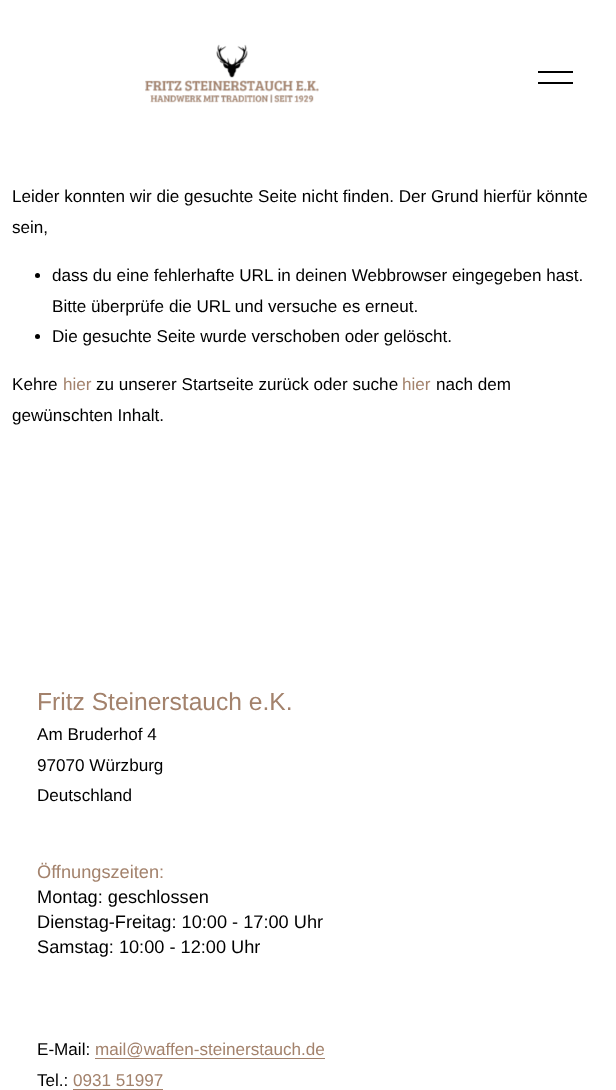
<!DOCTYPE html>
<meta charset="utf-8">
<style>body { margin: 0 } canvas { display: block }</style>
<canvas id="canvas" width="616" height="1090"></canvas>
<script type="module">
  const canvas = document.getElementById("canvas");
  const ctx = canvas.getContext("2d");
  ctx.miterLimit = 4;
  ctx.fontKerning = "normal";
  async function loadImage(src) {
    const img = new Image();
    img.src = src;
    await img.decode();
    return img;
  }

  ctx.fillStyle = "#ffffff";
  ctx.fillRect(0, 0, 616, 1090);
  ctx.drawImage(await loadImage("img1.png"), 145, 44, 174, 59);
  ctx.fillStyle = "#000000";
  ctx.fillRect(538, 71, 35, 2);
  ctx.fillRect(538, 82, 35, 2);
  ctx.font = "17.1px Liberation Sans";
  ctx.fillText("Leider konnten wir die gesuchte Seite nicht finden. Der Grund hierfür könnte", 12, 202);
  ctx.fillText("sein,", 12, 233);
  ctx.beginPath();
  ctx.arc(37.5, 275.5, 2.5, 0, Math.PI * 2);
  ctx.fill();
  ctx.fillText("dass du eine fehlerhafte URL in deinen Webbrowser eingegeben hast.", 52, 281);
  ctx.fillText("Bitte überprüfe die URL und versuche es erneut.", 52, 312);
  ctx.beginPath();
  ctx.arc(37.5, 336.5, 2.5, 0, Math.PI * 2);
  ctx.fill();
  ctx.fillText("Die gesuchte Seite wurde verschoben oder gelöscht.", 52, 342);
  ctx.fillText("Kehre", 12, 390);
  ctx.fillStyle = "#a3826c";
  ctx.fillText("hier", 63, 390);
  ctx.fillStyle = "#000000";
  ctx.fillText("zu unserer Startseite zurück oder suche", 96, 390);
  ctx.fillStyle = "#a3826c";
  ctx.fillText("hier", 402, 390);
  ctx.fillStyle = "#000000";
  ctx.fillText("nach dem", 436, 390);
  ctx.fillText("gewünschten Inhalt.", 12, 421);
  ctx.font = "24.6px Liberation Sans";
  ctx.fillStyle = "#a3826c";
  ctx.fillText("Fritz Steinerstauch e.K.", 37, 710);
  ctx.font = "17.1px Liberation Sans";
  ctx.fillStyle = "#000000";
  ctx.fillText("Am Bruderhof 4", 37, 740);
  ctx.fillText("97070 Würzburg", 37, 771);
  ctx.fillText("Deutschland", 37, 801);
  ctx.font = "18.2px Liberation Sans";
  ctx.fillStyle = "#a3826c";
  ctx.fillText("Öffnungszeiten:", 37, 878);
  ctx.fillStyle = "#000000";
  ctx.fillText("Montag: geschlossen", 37, 903);
  ctx.fillText("Dienstag-Freitag: 10:00 - 17:00 Uhr", 37, 928);
  ctx.fillText("Samstag: 10:00 - 12:00 Uhr", 37, 953);
  ctx.font = "17.1px Liberation Sans";
  ctx.fillText("E-Mail:", 37, 1055);
  ctx.fillStyle = "#a3826c";
  ctx.fillText("mail@waffen-steinerstauch.de", 95, 1055);
  ctx.fillRect(95, 1058, 230, 1);
  ctx.fillStyle = "#000000";
  ctx.fillText("Tel.:", 37, 1086);
  ctx.fillStyle = "#a3826c";
  ctx.fillText("0931 51997", 73, 1086);
  ctx.fillRect(73, 1089, 90, 1);
</script>
